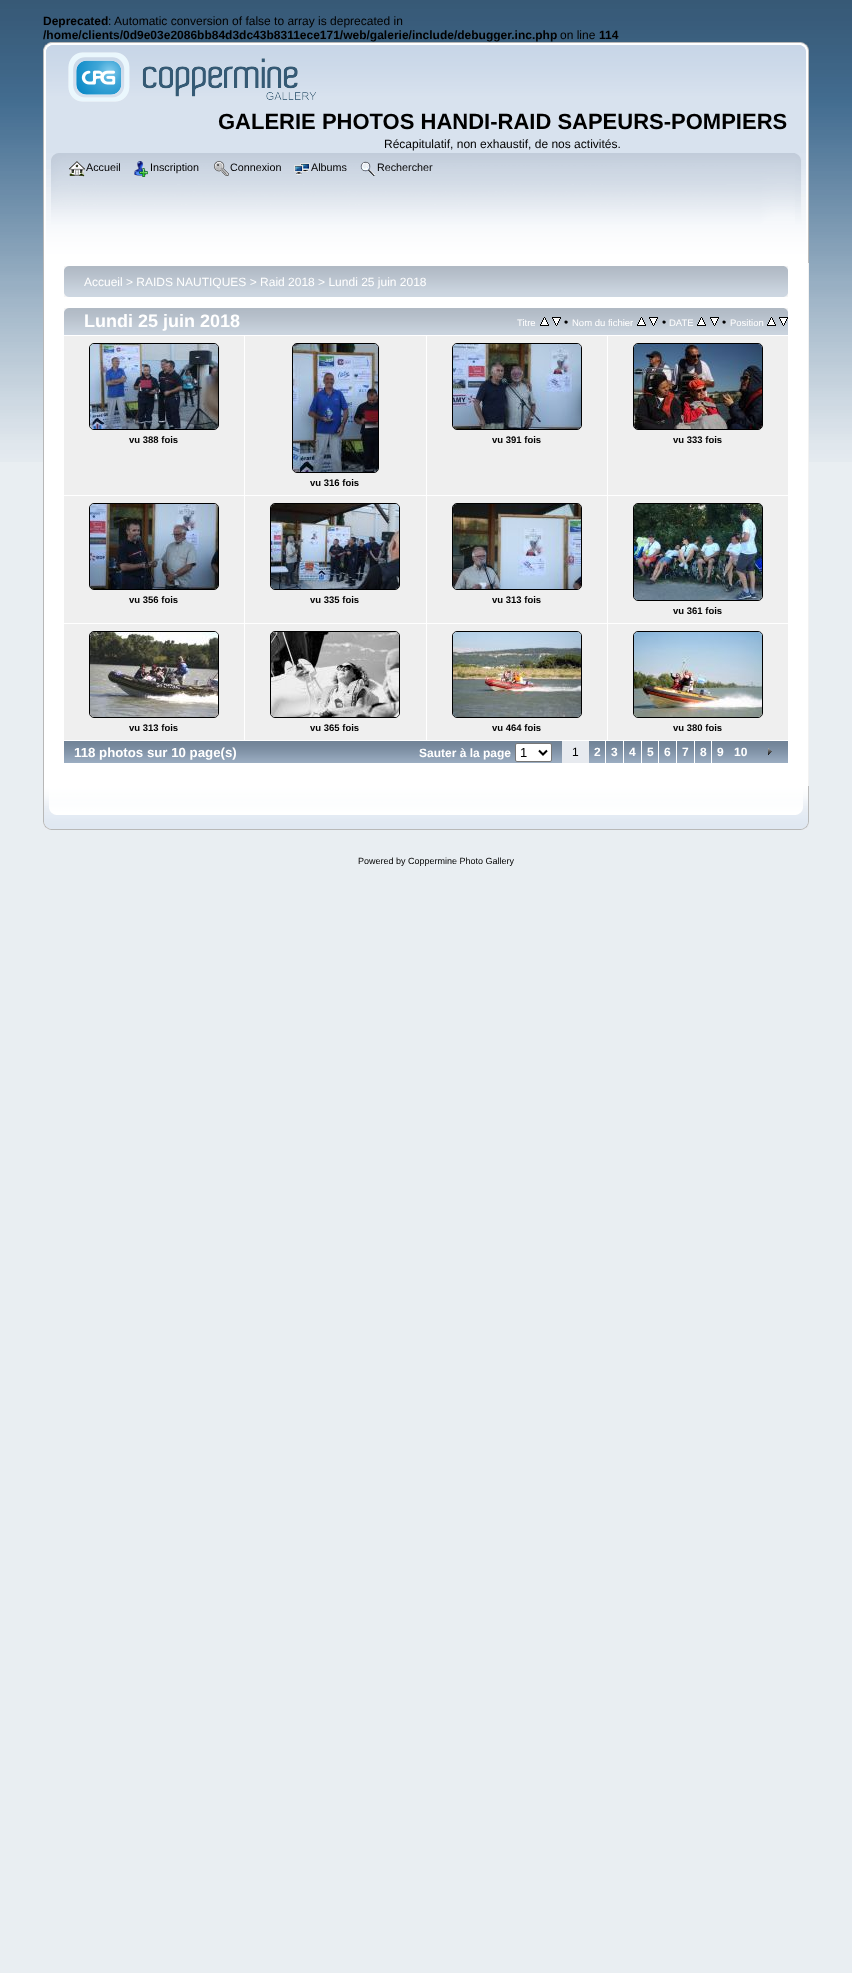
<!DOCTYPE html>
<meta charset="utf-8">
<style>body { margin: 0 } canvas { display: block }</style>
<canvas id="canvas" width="852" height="1973"></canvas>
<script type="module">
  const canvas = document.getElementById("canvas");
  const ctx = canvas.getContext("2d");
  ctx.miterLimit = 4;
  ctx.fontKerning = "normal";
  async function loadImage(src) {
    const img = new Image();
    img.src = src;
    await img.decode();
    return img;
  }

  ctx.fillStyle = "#e9eef2";
  ctx.fillRect(0, 0, 852, 1973);
  ctx.drawImage(await loadImage("img1.png"), 0, 0, 852, 462);
  ctx.font = "bold 12px Liberation Sans";
  ctx.fillStyle = "#000000";
  ctx.fillText("Deprecated", 43, 25);
  ctx.font = "12px Liberation Sans";
  ctx.fillText(":", 108, 25);
  ctx.fillText("Automatic conversion of false to array is deprecated in", 114, 25);
  ctx.font = "bold 12px Liberation Sans";
  ctx.fillText("/home/clients/0d9e03e2086bb84d3dc43b8311ece171/web/galerie/include/debugger.inc.php", 43, 39);
  ctx.font = "12px Liberation Sans";
  ctx.fillText("on line", 560, 39);
  ctx.font = "bold 12px Liberation Sans";
  ctx.fillText("114", 599, 39);
  ctx.drawImage(await loadImage("img2.png"), 43, 42, 758, 111);
  ctx.drawImage(await loadImage("img3.png"), 801, 42, 8, 111);
  ctx.drawImage(await loadImage("img4.png"), 68, 52, 248, 50);
  ctx.font = "bold 22px Liberation Sans";
  ctx.fillText("GALERIE PHOTOS HANDI-RAID SAPEURS-POMPIERS", 218, 129);
  ctx.font = "12px Liberation Sans";
  ctx.fillText("Récapitulatif, non exhaustif, de nos activités.", 384, 148);
  ctx.drawImage(await loadImage("img5.png"), 43, 153, 752, 110);
  ctx.drawImage(await loadImage("img6.png"), 795, 153, 14, 110);
  ctx.drawImage(await loadImage("img7.png"), 69, 161, 16, 16);
  ctx.font = "10.75px Liberation Sans";
  ctx.fillText("Accueil", 86, 171);
  ctx.drawImage(await loadImage("img8.png"), 134, 161, 14, 16);
  ctx.fillText("Inscription", 150, 171);
  ctx.drawImage(await loadImage("img9.png"), 214, 161, 15, 15);
  ctx.fillText("Connexion", 230, 171);
  ctx.drawImage(await loadImage("img10.png"), 294, 163, 16, 12);
  ctx.fillText("Albums", 311, 171);
  ctx.drawImage(await loadImage("img11.png"), 360, 161, 16, 15);
  ctx.fillText("Rechercher", 377, 171);
  ctx.fillStyle = "#ffffff";
  ctx.fillRect(44, 263, 764, 523);
  ctx.fillStyle = "#b7b7b7";
  ctx.fillRect(43, 263, 1, 523);
  ctx.fillStyle = "#f2f2f2";
  ctx.fillRect(808, 263, 1, 523);
  ctx.drawImage(await loadImage("img12.png"), 64, 266, 720, 31);
  ctx.drawImage(await loadImage("img13.png"), 784, 266, 4, 31);
  ctx.font = "12px Liberation Sans";
  ctx.fillStyle = "#ffffff";
  ctx.fillText("Accueil > RAIDS NAUTIQUES > Raid 2018 > Lundi 25 juin 2018", 84, 286);
  ctx.drawImage(await loadImage("img14.png"), 64, 308, 724, 27);
  ctx.drawImage(await loadImage("img15.png"), 784, 308, 4, 4);
  ctx.font = "bold 18px Liberation Sans";
  ctx.fillText("Lundi 25 juin 2018", 84, 327);
  ctx.font = "9.5px Liberation Sans";
  ctx.fillText("Titre", 517, 326);
  ctx.drawImage(await loadImage("img16.png"), 540, 317, 9, 9);
  ctx.drawImage(await loadImage("img17.png"), 552, 317, 9, 9);
  ctx.font = "12px Liberation Sans";
  ctx.fillStyle = "#000000";
  ctx.fillText("•", 564, 326);
  ctx.font = "9.5px Liberation Sans";
  ctx.fillStyle = "#ffffff";
  ctx.fillText("Nom du fichier", 572, 326);
  ctx.drawImage(await loadImage("img16.png"), 637, 317, 9, 9);
  ctx.drawImage(await loadImage("img17.png"), 649, 317, 9, 9);
  ctx.font = "12px Liberation Sans";
  ctx.fillStyle = "#000000";
  ctx.fillText("•", 662, 326);
  ctx.font = "9.5px Liberation Sans";
  ctx.fillStyle = "#ffffff";
  ctx.fillText("DATE", 669, 326);
  ctx.drawImage(await loadImage("img16.png"), 697, 317, 9, 9);
  ctx.drawImage(await loadImage("img17.png"), 710, 317, 9, 9);
  ctx.font = "12px Liberation Sans";
  ctx.fillStyle = "#000000";
  ctx.fillText("•", 722, 326);
  ctx.font = "9.5px Liberation Sans";
  ctx.fillStyle = "#ffffff";
  ctx.fillText("Position", 730, 326);
  ctx.drawImage(await loadImage("img16.png"), 767, 317, 9, 9);
  ctx.drawImage(await loadImage("img17.png"), 779, 317, 9, 9);
  ctx.fillStyle = "#efefef";
  ctx.fillRect(64, 336, 180, 159);
  ctx.beginPath();
  ctx.roundRect(89.5, 343.5, 129, 86, 4.5);
  ctx.strokeStyle = "#000000";
  ctx.stroke();
  ctx.drawImage(await loadImage("img18.png"), 90, 344, 128, 85);
  ctx.font = "bold 9.5px Liberation Sans";
  ctx.fillStyle = "#000000";
  ctx.fillText("vu 388 fois", 129, 443);
  ctx.fillStyle = "#efefef";
  ctx.fillRect(427, 336, 180, 159);
  ctx.beginPath();
  ctx.roundRect(452.5, 343.5, 129, 86, 4.5);
  ctx.stroke();
  ctx.drawImage(await loadImage("img19.png"), 453, 344, 128, 85);
  ctx.fillStyle = "#000000";
  ctx.fillText("vu 391 fois", 492, 443);
  ctx.fillStyle = "#efefef";
  ctx.fillRect(608, 336, 180, 159);
  ctx.beginPath();
  ctx.roundRect(633.5, 343.5, 129, 86, 4.5);
  ctx.stroke();
  ctx.drawImage(await loadImage("img20.png"), 634, 344, 128, 85);
  ctx.fillStyle = "#000000";
  ctx.fillText("vu 333 fois", 673, 443);
  ctx.fillStyle = "#efefef";
  ctx.fillRect(245, 336, 181, 159);
  ctx.beginPath();
  ctx.roundRect(292.5, 343.5, 86, 129, 4.5);
  ctx.stroke();
  ctx.drawImage(await loadImage("img21.png"), 293, 344, 85, 128);
  ctx.fillStyle = "#000000";
  ctx.fillText("vu 316 fois", 310, 486);
  ctx.fillStyle = "#efefef";
  ctx.fillRect(64, 496, 180, 127);
  ctx.beginPath();
  ctx.roundRect(89.5, 503.5, 129, 86, 4.5);
  ctx.stroke();
  ctx.drawImage(await loadImage("img22.png"), 90, 504, 128, 85);
  ctx.fillStyle = "#000000";
  ctx.fillText("vu 356 fois", 129, 603);
  ctx.fillStyle = "#efefef";
  ctx.fillRect(245, 496, 181, 127);
  ctx.beginPath();
  ctx.roundRect(270.5, 503.5, 129, 86, 4.5);
  ctx.stroke();
  ctx.drawImage(await loadImage("img23.png"), 271, 504, 128, 85);
  ctx.fillStyle = "#000000";
  ctx.fillText("vu 335 fois", 310, 603);
  ctx.fillStyle = "#efefef";
  ctx.fillRect(427, 496, 180, 127);
  ctx.beginPath();
  ctx.roundRect(452.5, 503.5, 129, 86, 4.5);
  ctx.stroke();
  ctx.drawImage(await loadImage("img24.png"), 453, 504, 128, 85);
  ctx.fillStyle = "#000000";
  ctx.fillText("vu 313 fois", 492, 603);
  ctx.fillStyle = "#efefef";
  ctx.fillRect(608, 496, 180, 127);
  ctx.beginPath();
  ctx.roundRect(633.5, 503.5, 129, 97, 4.5);
  ctx.stroke();
  ctx.drawImage(await loadImage("img25.png"), 634, 504, 128, 96);
  ctx.fillStyle = "#000000";
  ctx.fillText("vu 361 fois", 673, 614);
  ctx.fillStyle = "#efefef";
  ctx.fillRect(64, 624, 180, 116);
  ctx.beginPath();
  ctx.roundRect(89.5, 631.5, 129, 86, 4.5);
  ctx.stroke();
  ctx.drawImage(await loadImage("img26.png"), 90, 632, 128, 85);
  ctx.fillStyle = "#000000";
  ctx.fillText("vu 313 fois", 129, 731);
  ctx.fillStyle = "#efefef";
  ctx.fillRect(245, 624, 181, 116);
  ctx.beginPath();
  ctx.roundRect(270.5, 631.5, 129, 86, 4.5);
  ctx.stroke();
  ctx.drawImage(await loadImage("img27.png"), 271, 632, 128, 85);
  ctx.fillStyle = "#000000";
  ctx.fillText("vu 365 fois", 310, 731);
  ctx.fillStyle = "#efefef";
  ctx.fillRect(427, 624, 180, 116);
  ctx.beginPath();
  ctx.roundRect(452.5, 631.5, 129, 86, 4.5);
  ctx.stroke();
  ctx.drawImage(await loadImage("img28.png"), 453, 632, 128, 85);
  ctx.fillStyle = "#000000";
  ctx.fillText("vu 464 fois", 492, 731);
  ctx.fillStyle = "#efefef";
  ctx.fillRect(608, 624, 180, 116);
  ctx.beginPath();
  ctx.roundRect(633.5, 631.5, 129, 86, 4.5);
  ctx.stroke();
  ctx.drawImage(await loadImage("img29.png"), 634, 632, 128, 85);
  ctx.fillStyle = "#000000";
  ctx.fillText("vu 380 fois", 673, 731);
  ctx.drawImage(await loadImage("img30.png"), 64, 741, 355, 22);
  ctx.font = "bold 13.25px Liberation Sans";
  ctx.fillStyle = "#ffffff";
  ctx.fillText("118 photos sur 10 page(s)", 74, 757);
  ctx.drawImage(await loadImage("img31.png"), 419, 741, 143, 22);
  ctx.font = "bold 12px Liberation Sans";
  ctx.fillText("Sauter à la page", 419, 757);
  ctx.beginPath();
  ctx.roundRect(515.5, 743.5, 36, 18, 1.5);
  ctx.fill();
  ctx.strokeStyle = "#767676";
  ctx.stroke();
  ctx.beginPath();
  ctx.moveTo(539, 750.5);
  ctx.lineTo(543, 754.5);
  ctx.lineTo(547, 750.5);
  ctx.strokeStyle = "#000000";
  ctx.lineWidth = 2;
  ctx.stroke();
  ctx.font = "13px Liberation Sans";
  ctx.fillStyle = "#000000";
  ctx.fillText("1", 520, 757);
  ctx.fillStyle = "#e7eaef";
  ctx.fillRect(562, 741, 27, 22);
  ctx.font = "12px Liberation Sans";
  ctx.fillStyle = "#000000";
  ctx.fillText("1", 572, 756);
  ctx.drawImage(await loadImage("img32.png"), 589, 741, 16, 22);
  ctx.font = "bold 12px Liberation Sans";
  ctx.fillStyle = "#ffffff";
  ctx.fillText("2", 594, 756);
  ctx.drawImage(await loadImage("img33.png"), 606, 741, 17, 22);
  ctx.fillText("3", 611, 756);
  ctx.drawImage(await loadImage("img33.png"), 624, 741, 17, 22);
  ctx.fillText("4", 629, 756);
  ctx.drawImage(await loadImage("img32.png"), 642, 741, 16, 22);
  ctx.fillText("5", 647, 756);
  ctx.drawImage(await loadImage("img33.png"), 659, 741, 17, 22);
  ctx.fillText("6", 664, 756);
  ctx.drawImage(await loadImage("img33.png"), 677, 741, 17, 22);
  ctx.fillText("7", 682, 756);
  ctx.drawImage(await loadImage("img32.png"), 695, 741, 16, 22);
  ctx.fillText("8", 700, 756);
  ctx.drawImage(await loadImage("img33.png"), 712, 741, 17, 22);
  ctx.fillText("9", 717, 756);
  ctx.drawImage(await loadImage("img34.png"), 729, 741, 23, 22);
  ctx.fillText("10", 734, 756);
  ctx.drawImage(await loadImage("img35.png"), 752, 741, 36, 22);
  ctx.drawImage(await loadImage("img36.png"), 768, 748, 4, 7);
  ctx.drawImage(await loadImage("img37.png"), 43, 786, 753, 44);
  ctx.drawImage(await loadImage("img38.png"), 796, 786, 13, 44);
  ctx.font = "9px Liberation Sans";
  ctx.fillStyle = "#000000";
  ctx.fillText("Powered by Coppermine Photo Gallery", 358, 864);
</script>
